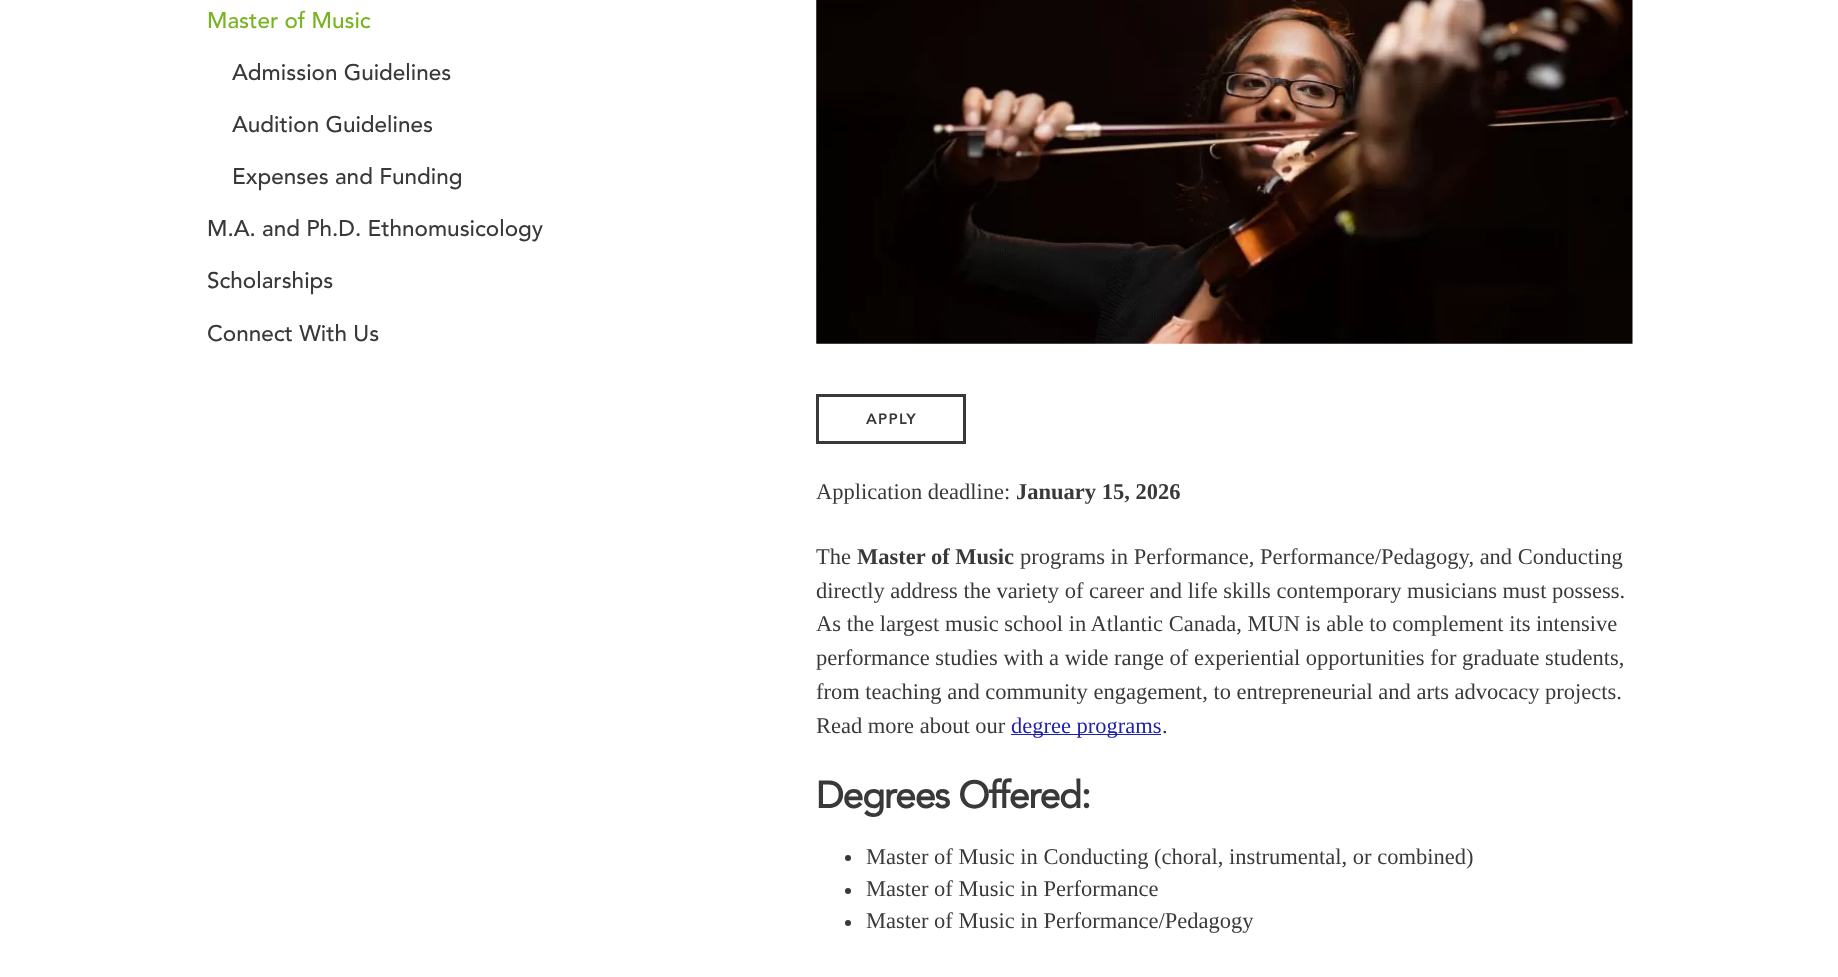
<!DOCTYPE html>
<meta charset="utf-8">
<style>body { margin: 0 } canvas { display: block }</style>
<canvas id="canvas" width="1838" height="977"></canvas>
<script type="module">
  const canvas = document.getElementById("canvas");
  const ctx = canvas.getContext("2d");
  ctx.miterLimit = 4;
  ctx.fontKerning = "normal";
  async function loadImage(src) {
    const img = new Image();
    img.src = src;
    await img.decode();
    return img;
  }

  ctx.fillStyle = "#ffffff";
  ctx.fillRect(0, 0, 1838, 977);
  ctx.font = "500 22.5px 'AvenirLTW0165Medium'";
  ctx.fillStyle = "#78b320";
  ctx.fillText("Master of Music", 207, 28);
  ctx.fillStyle = "#393939";
  ctx.fillText("Admission Guidelines", 232, 80);
  ctx.fillText("Audition Guidelines", 232, 132);
  ctx.fillText("Expenses and Funding", 232, 184);
  ctx.fillText("M.A. and Ph.D. Ethnomusicology", 207, 236);
  ctx.fillText("Scholarships", 207, 288);
  ctx.fillText("Connect With Us", 207, 341);
  ctx.drawImage(await loadImage("img1.png"), 816, 0, 817, 344);
  ctx.strokeStyle = "#393939";
  ctx.lineWidth = 3;
  ctx.strokeRect(817.5, 395.5, 147, 47);
  ctx.letterSpacing = "1.25px";
  ctx.font = "900 15px 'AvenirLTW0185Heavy'";
  ctx.fillText("APPLY", 866, 424);
  ctx.letterSpacing = "0px";
  ctx.font = "22.5px Liberation Serif";
  ctx.fillText("Application deadline:", 816, 499);
  ctx.font = "bold 22.5px Liberation Serif";
  ctx.fillText("January 15, 2026", 1016, 499);
  ctx.font = "22.5px Liberation Serif";
  ctx.fillText("The", 816, 564);
  ctx.font = "bold 22.5px Liberation Serif";
  ctx.fillText("Master of Music", 857, 564);
  ctx.font = "22.5px Liberation Serif";
  ctx.fillText("programs in Performance, Performance/Pedagogy, and Conducting", 1020, 564);
  ctx.fillText("directly address the variety of career and life skills contemporary musicians must possess.", 816, 598);
  ctx.fillText("As the largest music school in Atlantic Canada, MUN is able to complement its intensive", 816, 631);
  ctx.fillText("performance studies with a wide range of experiential opportunities for graduate students,", 816, 665);
  ctx.fillText("from teaching and community engagement, to entrepreneurial and arts advocacy projects.", 816, 699);
  ctx.fillText("Read more about our", 816, 733);
  ctx.fillStyle = "#1e22aa";
  ctx.fillRect(1011, 734, 150, 1);
  ctx.fillText("degree programs", 1011, 733);
  ctx.fillStyle = "#393939";
  ctx.fillText(".", 1162, 733);
  ctx.letterSpacing = "-1.25px";
  ctx.font = "bold 37.5px 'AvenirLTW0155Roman'";
  ctx.fillText("Degrees Offered:", 816, 808);
  ctx.beginPath();
  ctx.arc(848, 858, 3, 0, Math.PI * 2);
  ctx.fill();
  ctx.letterSpacing = "0px";
  ctx.font = "22.5px Liberation Serif";
  ctx.fillText("Master of Music in Conducting (choral, instrumental, or combined)", 866, 864);
  ctx.beginPath();
  ctx.arc(848, 891, 3, 0, Math.PI * 2);
  ctx.fill();
  ctx.fillText("Master of Music in Performance", 866, 896);
  ctx.beginPath();
  ctx.arc(848, 923, 3, 0, Math.PI * 2);
  ctx.fill();
  ctx.fillText("Master of Music in Performance/Pedagogy", 866, 928);
</script>
